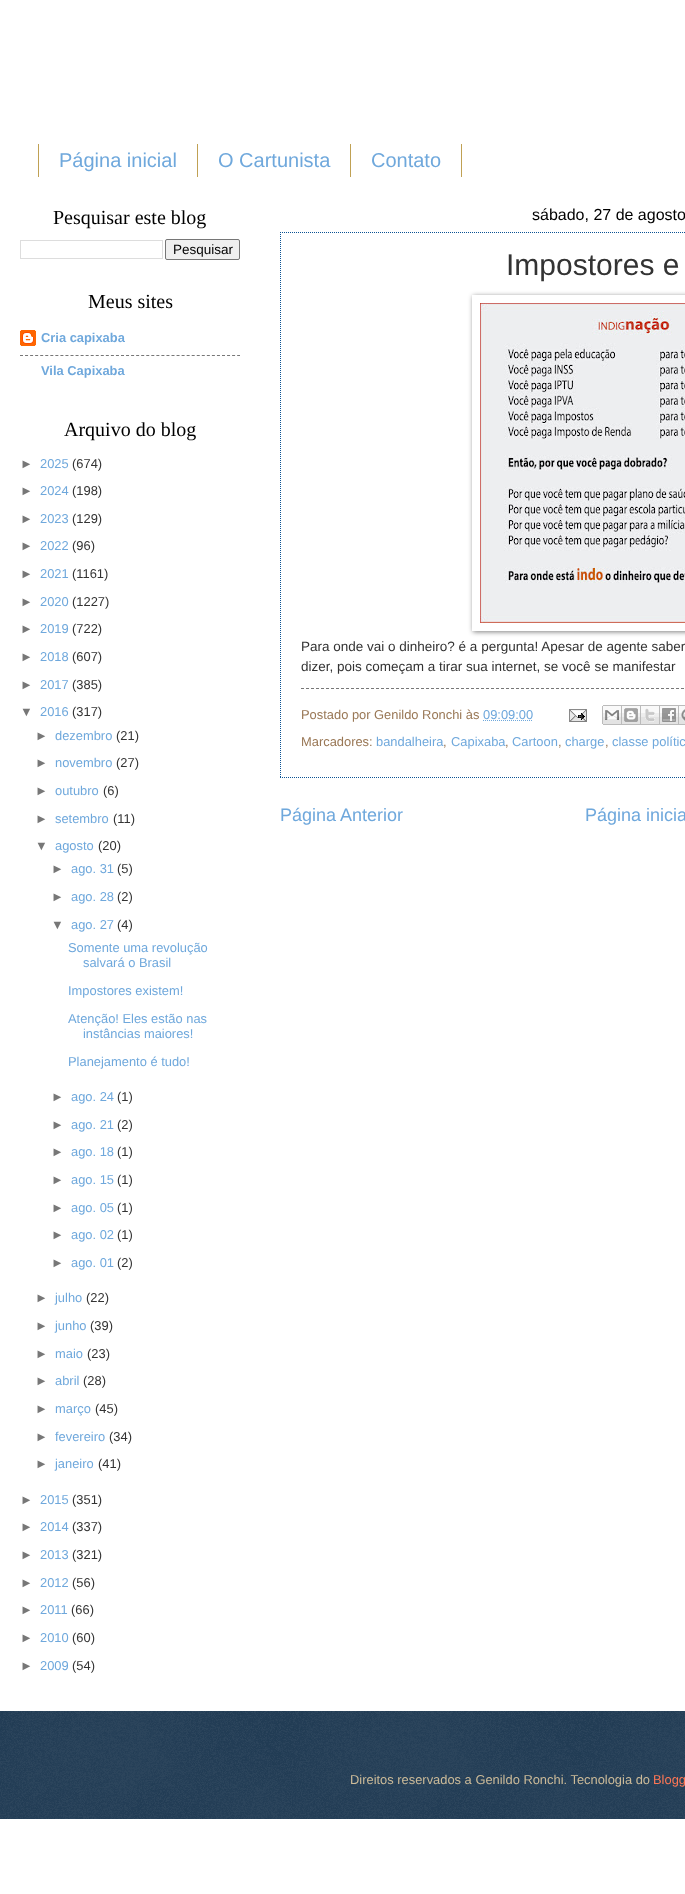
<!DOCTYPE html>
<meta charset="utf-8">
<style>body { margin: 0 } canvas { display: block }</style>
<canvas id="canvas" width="685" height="1894"></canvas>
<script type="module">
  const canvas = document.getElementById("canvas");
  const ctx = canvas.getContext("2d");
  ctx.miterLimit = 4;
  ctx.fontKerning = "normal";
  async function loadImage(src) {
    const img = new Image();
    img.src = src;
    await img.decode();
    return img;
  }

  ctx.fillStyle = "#ffffff";
  ctx.fillRect(0, 0, 685, 1894);
  ctx.fillStyle = "#c0a154";
  ctx.fillRect(197, 144, 1, 33);
  ctx.fillRect(38, 144, 1, 33);
  ctx.font = "20px Liberation Sans";
  ctx.fillStyle = "#6fa8dc";
  ctx.fillText("Página inicial", 59, 167);
  ctx.fillStyle = "#c0a154";
  ctx.fillRect(350, 144, 1, 33);
  ctx.fillStyle = "#6fa8dc";
  ctx.fillText("O Cartunista", 218, 167);
  ctx.fillStyle = "#c0a154";
  ctx.fillRect(461, 144, 1, 33);
  ctx.fillStyle = "#6fa8dc";
  ctx.fillText("Contato", 371, 167);
  ctx.font = "20px Liberation Serif";
  ctx.fillStyle = "#000000";
  ctx.fillText("Pesquisar este blog", 53, 224);
  ctx.strokeStyle = "#dddddd";
  ctx.strokeRect(20.5, 240.5, 142, 18);
  ctx.fillStyle = "#efefef";
  ctx.beginPath();
  ctx.roundRect(165.5, 239.5, 74, 20, 1.5);
  ctx.fill();
  ctx.strokeStyle = "#767676";
  ctx.stroke();
  ctx.font = "13.5px Liberation Sans";
  ctx.fillStyle = "#000000";
  ctx.fillText("Pesquisar", 173, 254);
  ctx.font = "20px Liberation Serif";
  ctx.fillText("Meus sites", 88, 308);
  ctx.drawImage(await loadImage("img1.png"), 20, 330, 16, 16);
  ctx.font = "bold 12.9px Liberation Sans";
  ctx.fillStyle = "#6fa8dc";
  ctx.fillText("Cria capixaba", 41, 342);
  ctx.beginPath();
  ctx.moveTo(20, 355.5);
  ctx.lineTo(240, 355.5);
  ctx.strokeStyle = "#777777";
  ctx.setLineDash([3, 2.05]);
  ctx.stroke();
  ctx.fillText("Vila Capixaba", 41, 375);
  ctx.font = "20px Liberation Serif";
  ctx.fillStyle = "#000000";
  ctx.fillText("Arquivo do blog", 64, 436);
  ctx.font = "12.9px Liberation Sans";
  ctx.fillStyle = "#777777";
  ctx.fillText("►", 20, 468);
  ctx.fillStyle = "#6fa8dc";
  ctx.fillText("2025", 40, 468);
  ctx.fillStyle = "#333333";
  ctx.fillText("(674)", 72, 468);
  ctx.fillStyle = "#777777";
  ctx.fillText("►", 20, 495);
  ctx.fillStyle = "#6fa8dc";
  ctx.fillText("2024", 40, 495);
  ctx.fillStyle = "#333333";
  ctx.fillText("(198)", 72, 495);
  ctx.fillStyle = "#777777";
  ctx.fillText("►", 20, 523);
  ctx.fillStyle = "#6fa8dc";
  ctx.fillText("2023", 40, 523);
  ctx.fillStyle = "#333333";
  ctx.fillText("(129)", 72, 523);
  ctx.fillStyle = "#777777";
  ctx.fillText("►", 20, 550);
  ctx.fillStyle = "#6fa8dc";
  ctx.fillText("2022", 40, 550);
  ctx.fillStyle = "#333333";
  ctx.fillText("(96)", 72, 550);
  ctx.fillStyle = "#777777";
  ctx.fillText("►", 20, 578);
  ctx.fillStyle = "#6fa8dc";
  ctx.fillText("2021", 40, 578);
  ctx.fillStyle = "#333333";
  ctx.fillText("(1161)", 72, 578);
  ctx.fillStyle = "#777777";
  ctx.fillText("►", 20, 606);
  ctx.fillStyle = "#6fa8dc";
  ctx.fillText("2020", 40, 606);
  ctx.fillStyle = "#333333";
  ctx.fillText("(1227)", 72, 606);
  ctx.fillStyle = "#777777";
  ctx.fillText("►", 20, 633);
  ctx.fillStyle = "#6fa8dc";
  ctx.fillText("2019", 40, 633);
  ctx.fillStyle = "#333333";
  ctx.fillText("(722)", 72, 633);
  ctx.fillStyle = "#777777";
  ctx.fillText("►", 20, 661);
  ctx.fillStyle = "#6fa8dc";
  ctx.fillText("2018", 40, 661);
  ctx.fillStyle = "#333333";
  ctx.fillText("(607)", 72, 661);
  ctx.fillStyle = "#777777";
  ctx.fillText("►", 20, 689);
  ctx.fillStyle = "#6fa8dc";
  ctx.fillText("2017", 40, 689);
  ctx.fillStyle = "#333333";
  ctx.fillText("(385)", 72, 689);
  ctx.fillStyle = "#777777";
  ctx.fillText("▼", 20, 716);
  ctx.fillStyle = "#6fa8dc";
  ctx.fillText("2016", 40, 716);
  ctx.fillStyle = "#333333";
  ctx.fillText("(317)", 72, 716);
  ctx.fillStyle = "#777777";
  ctx.fillText("►", 35, 740);
  ctx.fillStyle = "#6fa8dc";
  ctx.fillText("dezembro", 55, 740);
  ctx.fillStyle = "#333333";
  ctx.fillText("(21)", 116, 740);
  ctx.fillStyle = "#777777";
  ctx.fillText("►", 35, 767);
  ctx.fillStyle = "#6fa8dc";
  ctx.fillText("novembro", 55, 767);
  ctx.fillStyle = "#333333";
  ctx.fillText("(27)", 116, 767);
  ctx.fillStyle = "#777777";
  ctx.fillText("►", 35, 795);
  ctx.fillStyle = "#6fa8dc";
  ctx.fillText("outubro", 55, 795);
  ctx.fillStyle = "#333333";
  ctx.fillText("(6)", 103, 795);
  ctx.fillStyle = "#777777";
  ctx.fillText("►", 35, 823);
  ctx.fillStyle = "#6fa8dc";
  ctx.fillText("setembro", 55, 823);
  ctx.fillStyle = "#333333";
  ctx.fillText("(11)", 113, 823);
  ctx.fillStyle = "#777777";
  ctx.fillText("▼", 35, 850);
  ctx.fillStyle = "#6fa8dc";
  ctx.fillText("agosto", 55, 850);
  ctx.fillStyle = "#333333";
  ctx.fillText("(20)", 98, 850);
  ctx.fillStyle = "#777777";
  ctx.fillText("►", 51, 873);
  ctx.fillStyle = "#6fa8dc";
  ctx.fillText("ago. 31", 71, 873);
  ctx.fillStyle = "#333333";
  ctx.fillText("(5)", 117, 873);
  ctx.fillStyle = "#777777";
  ctx.fillText("►", 51, 901);
  ctx.fillStyle = "#6fa8dc";
  ctx.fillText("ago. 28", 71, 901);
  ctx.fillStyle = "#333333";
  ctx.fillText("(2)", 117, 901);
  ctx.fillStyle = "#777777";
  ctx.fillText("▼", 51, 929);
  ctx.fillStyle = "#6fa8dc";
  ctx.fillText("ago. 27", 71, 929);
  ctx.fillStyle = "#333333";
  ctx.fillText("(4)", 117, 929);
  ctx.fillStyle = "#6fa8dc";
  ctx.fillText("Somente uma revolução", 68, 952);
  ctx.fillText("salvará o Brasil", 83, 967);
  ctx.fillText("Impostores existem!", 68, 995);
  ctx.fillText("Atenção! Eles estão nas", 68, 1023);
  ctx.fillText("instâncias maiores!", 83, 1038);
  ctx.fillText("Planejamento é tudo!", 68, 1066);
  ctx.fillStyle = "#777777";
  ctx.fillText("►", 51, 1101);
  ctx.fillStyle = "#6fa8dc";
  ctx.fillText("ago. 24", 71, 1101);
  ctx.fillStyle = "#333333";
  ctx.fillText("(1)", 117, 1101);
  ctx.fillStyle = "#777777";
  ctx.fillText("►", 51, 1129);
  ctx.fillStyle = "#6fa8dc";
  ctx.fillText("ago. 21", 71, 1129);
  ctx.fillStyle = "#333333";
  ctx.fillText("(2)", 117, 1129);
  ctx.fillStyle = "#777777";
  ctx.fillText("►", 51, 1156);
  ctx.fillStyle = "#6fa8dc";
  ctx.fillText("ago. 18", 71, 1156);
  ctx.fillStyle = "#333333";
  ctx.fillText("(1)", 117, 1156);
  ctx.fillStyle = "#777777";
  ctx.fillText("►", 51, 1184);
  ctx.fillStyle = "#6fa8dc";
  ctx.fillText("ago. 15", 71, 1184);
  ctx.fillStyle = "#333333";
  ctx.fillText("(1)", 117, 1184);
  ctx.fillStyle = "#777777";
  ctx.fillText("►", 51, 1212);
  ctx.fillStyle = "#6fa8dc";
  ctx.fillText("ago. 05", 71, 1212);
  ctx.fillStyle = "#333333";
  ctx.fillText("(1)", 117, 1212);
  ctx.fillStyle = "#777777";
  ctx.fillText("►", 51, 1239);
  ctx.fillStyle = "#6fa8dc";
  ctx.fillText("ago. 02", 71, 1239);
  ctx.fillStyle = "#333333";
  ctx.fillText("(1)", 117, 1239);
  ctx.fillStyle = "#777777";
  ctx.fillText("►", 51, 1267);
  ctx.fillStyle = "#6fa8dc";
  ctx.fillText("ago. 01", 71, 1267);
  ctx.fillStyle = "#333333";
  ctx.fillText("(2)", 117, 1267);
  ctx.fillStyle = "#777777";
  ctx.fillText("►", 35, 1302);
  ctx.fillStyle = "#6fa8dc";
  ctx.fillText("julho", 55, 1302);
  ctx.fillStyle = "#333333";
  ctx.fillText("(22)", 86, 1302);
  ctx.fillStyle = "#777777";
  ctx.fillText("►", 35, 1330);
  ctx.fillStyle = "#6fa8dc";
  ctx.fillText("junho", 55, 1330);
  ctx.fillStyle = "#333333";
  ctx.fillText("(39)", 90, 1330);
  ctx.fillStyle = "#777777";
  ctx.fillText("►", 35, 1358);
  ctx.fillStyle = "#6fa8dc";
  ctx.fillText("maio", 55, 1358);
  ctx.fillStyle = "#333333";
  ctx.fillText("(23)", 87, 1358);
  ctx.fillStyle = "#777777";
  ctx.fillText("►", 35, 1385);
  ctx.fillStyle = "#6fa8dc";
  ctx.fillText("abril", 55, 1385);
  ctx.fillStyle = "#333333";
  ctx.fillText("(28)", 83, 1385);
  ctx.fillStyle = "#777777";
  ctx.fillText("►", 35, 1413);
  ctx.fillStyle = "#6fa8dc";
  ctx.fillText("março", 55, 1413);
  ctx.fillStyle = "#333333";
  ctx.fillText("(45)", 95, 1413);
  ctx.fillStyle = "#777777";
  ctx.fillText("►", 35, 1441);
  ctx.fillStyle = "#6fa8dc";
  ctx.fillText("fevereiro", 55, 1441);
  ctx.fillStyle = "#333333";
  ctx.fillText("(34)", 109, 1441);
  ctx.fillStyle = "#777777";
  ctx.fillText("►", 35, 1468);
  ctx.fillStyle = "#6fa8dc";
  ctx.fillText("janeiro", 55, 1468);
  ctx.fillStyle = "#333333";
  ctx.fillText("(41)", 98, 1468);
  ctx.fillStyle = "#777777";
  ctx.fillText("►", 20, 1504);
  ctx.fillStyle = "#6fa8dc";
  ctx.fillText("2015", 40, 1504);
  ctx.fillStyle = "#333333";
  ctx.fillText("(351)", 72, 1504);
  ctx.fillStyle = "#777777";
  ctx.fillText("►", 20, 1531);
  ctx.fillStyle = "#6fa8dc";
  ctx.fillText("2014", 40, 1531);
  ctx.fillStyle = "#333333";
  ctx.fillText("(337)", 72, 1531);
  ctx.fillStyle = "#777777";
  ctx.fillText("►", 20, 1559);
  ctx.fillStyle = "#6fa8dc";
  ctx.fillText("2013", 40, 1559);
  ctx.fillStyle = "#333333";
  ctx.fillText("(321)", 72, 1559);
  ctx.fillStyle = "#777777";
  ctx.fillText("►", 20, 1587);
  ctx.fillStyle = "#6fa8dc";
  ctx.fillText("2012", 40, 1587);
  ctx.fillStyle = "#333333";
  ctx.fillText("(56)", 72, 1587);
  ctx.fillStyle = "#777777";
  ctx.fillText("►", 20, 1614);
  ctx.fillStyle = "#6fa8dc";
  ctx.fillText("2011", 40, 1614);
  ctx.fillStyle = "#333333";
  ctx.fillText("(66)", 71, 1614);
  ctx.fillStyle = "#777777";
  ctx.fillText("►", 20, 1642);
  ctx.fillStyle = "#6fa8dc";
  ctx.fillText("2010", 40, 1642);
  ctx.fillStyle = "#333333";
  ctx.fillText("(60)", 72, 1642);
  ctx.fillStyle = "#777777";
  ctx.fillText("►", 20, 1670);
  ctx.fillStyle = "#6fa8dc";
  ctx.fillText("2009", 40, 1670);
  ctx.fillStyle = "#333333";
  ctx.fillText("(54)", 72, 1670);
  ctx.font = "16px Liberation Sans";
  ctx.fillStyle = "#000000";
  ctx.fillText("sábado, 27 de agosto", 532, 220);
  ctx.beginPath();
  ctx.moveTo(280, 232.5);
  ctx.lineTo(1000, 232.5);
  ctx.strokeStyle = "#0b5394";
  ctx.setLineDash([1, 1]);
  ctx.stroke();
  ctx.beginPath();
  ctx.moveTo(280, 777.5);
  ctx.lineTo(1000, 777.5);
  ctx.stroke();
  ctx.beginPath();
  ctx.moveTo(280.5, 232);
  ctx.lineTo(280.5, 778);
  ctx.stroke();
  ctx.font = "30px Liberation Sans";
  ctx.fillStyle = "#333333";
  ctx.fillText("Impostores e", 506, 275);
  ctx.save();
  ctx.beginPath();
  ctx.moveTo(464, 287);
  ctx.lineTo(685, 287);
  ctx.lineTo(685, 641);
  ctx.lineTo(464, 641);
  ctx.closePath();
  ctx.moveTo(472, 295);
  ctx.lineTo(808, 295);
  ctx.lineTo(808, 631);
  ctx.lineTo(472, 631);
  ctx.closePath();
  ctx.clip("evenodd");
  ctx.fillStyle = "rgba(0, 0, 0, 0.5)";
  ctx.filter = "blur(2.5px)";
  ctx.beginPath();
  ctx.rect(473, 296, 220, 336);
  ctx.fill();
  ctx.filter = "none";
  ctx.restore();
  ctx.drawImage(await loadImage("img2.png"), 480, 303, 205, 320);
  ctx.font = "13.5px Liberation Sans";
  ctx.fillText("Para onde vai o dinheiro? é a pergunta! Apesar de agente saber", 301, 651);
  ctx.fillText("dizer, pois começam a tirar sua internet, se você se manifestar", 301, 671);
  ctx.beginPath();
  ctx.moveTo(301, 688.5);
  ctx.lineTo(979, 688.5);
  ctx.strokeStyle = "#777777";
  ctx.setLineDash([3, 2]);
  ctx.stroke();
  ctx.font = "12.9px Liberation Sans";
  ctx.fillStyle = "#997755";
  ctx.fillText("Postado por Genildo Ronchi às", 301, 719);
  ctx.fillStyle = "#6fa8dc";
  ctx.fillText("09:09:00", 483, 719);
  ctx.beginPath();
  ctx.moveTo(483, 720.5);
  ctx.lineTo(533, 720.5);
  ctx.strokeStyle = "#6fa8dc";
  ctx.setLineDash([1, 1]);
  ctx.stroke();
  ctx.drawImage(await loadImage("img3.png"), 569, 709, 18, 13);
  ctx.drawImage(await loadImage("img4.png"), 602, 705, 20, 20);
  ctx.drawImage(await loadImage("img5.png"), 622, 705, 19, 20);
  ctx.drawImage(await loadImage("img6.png"), 641, 705, 19, 20);
  ctx.drawImage(await loadImage("img7.png"), 660, 705, 19, 20);
  ctx.drawImage(await loadImage("img8.png"), 679, 705, 6, 20);
  ctx.fillStyle = "#997755";
  ctx.fillText("Marcadores:", 301, 746);
  ctx.fillStyle = "#6fa8dc";
  ctx.fillText("bandalheira", 376, 746);
  ctx.fillStyle = "#997755";
  ctx.fillText(",", 443, 746);
  ctx.fillStyle = "#6fa8dc";
  ctx.fillText("Capixaba", 451, 746);
  ctx.fillStyle = "#997755";
  ctx.fillText(",", 505, 746);
  ctx.fillStyle = "#6fa8dc";
  ctx.fillText("Cartoon", 512, 746);
  ctx.fillStyle = "#997755";
  ctx.fillText(",", 558, 746);
  ctx.fillStyle = "#6fa8dc";
  ctx.fillText("charge", 565, 746);
  ctx.fillStyle = "#997755";
  ctx.fillText(",", 605, 746);
  ctx.fillStyle = "#6fa8dc";
  ctx.fillText("classe polític", 612, 746);
  ctx.font = "18px Liberation Sans";
  ctx.fillText("Página Anterior", 280, 821);
  ctx.fillText("Página inicia", 585, 821);
  ctx.fillStyle = "#03213d";
  ctx.fillRect(0, 1711, 685, 108);
  ctx.drawImage(await loadImage("img9.png"), 0, 1711, 685, 108);
  ctx.font = "12.9px Liberation Sans";
  ctx.fillStyle = "#ccbb99";
  ctx.fillText("Direitos reservados a Genildo Ronchi. Tecnologia do", 350, 1784);
  ctx.fillStyle = "#ff7755";
  ctx.fillText("Blogg", 653, 1784);
</script>
